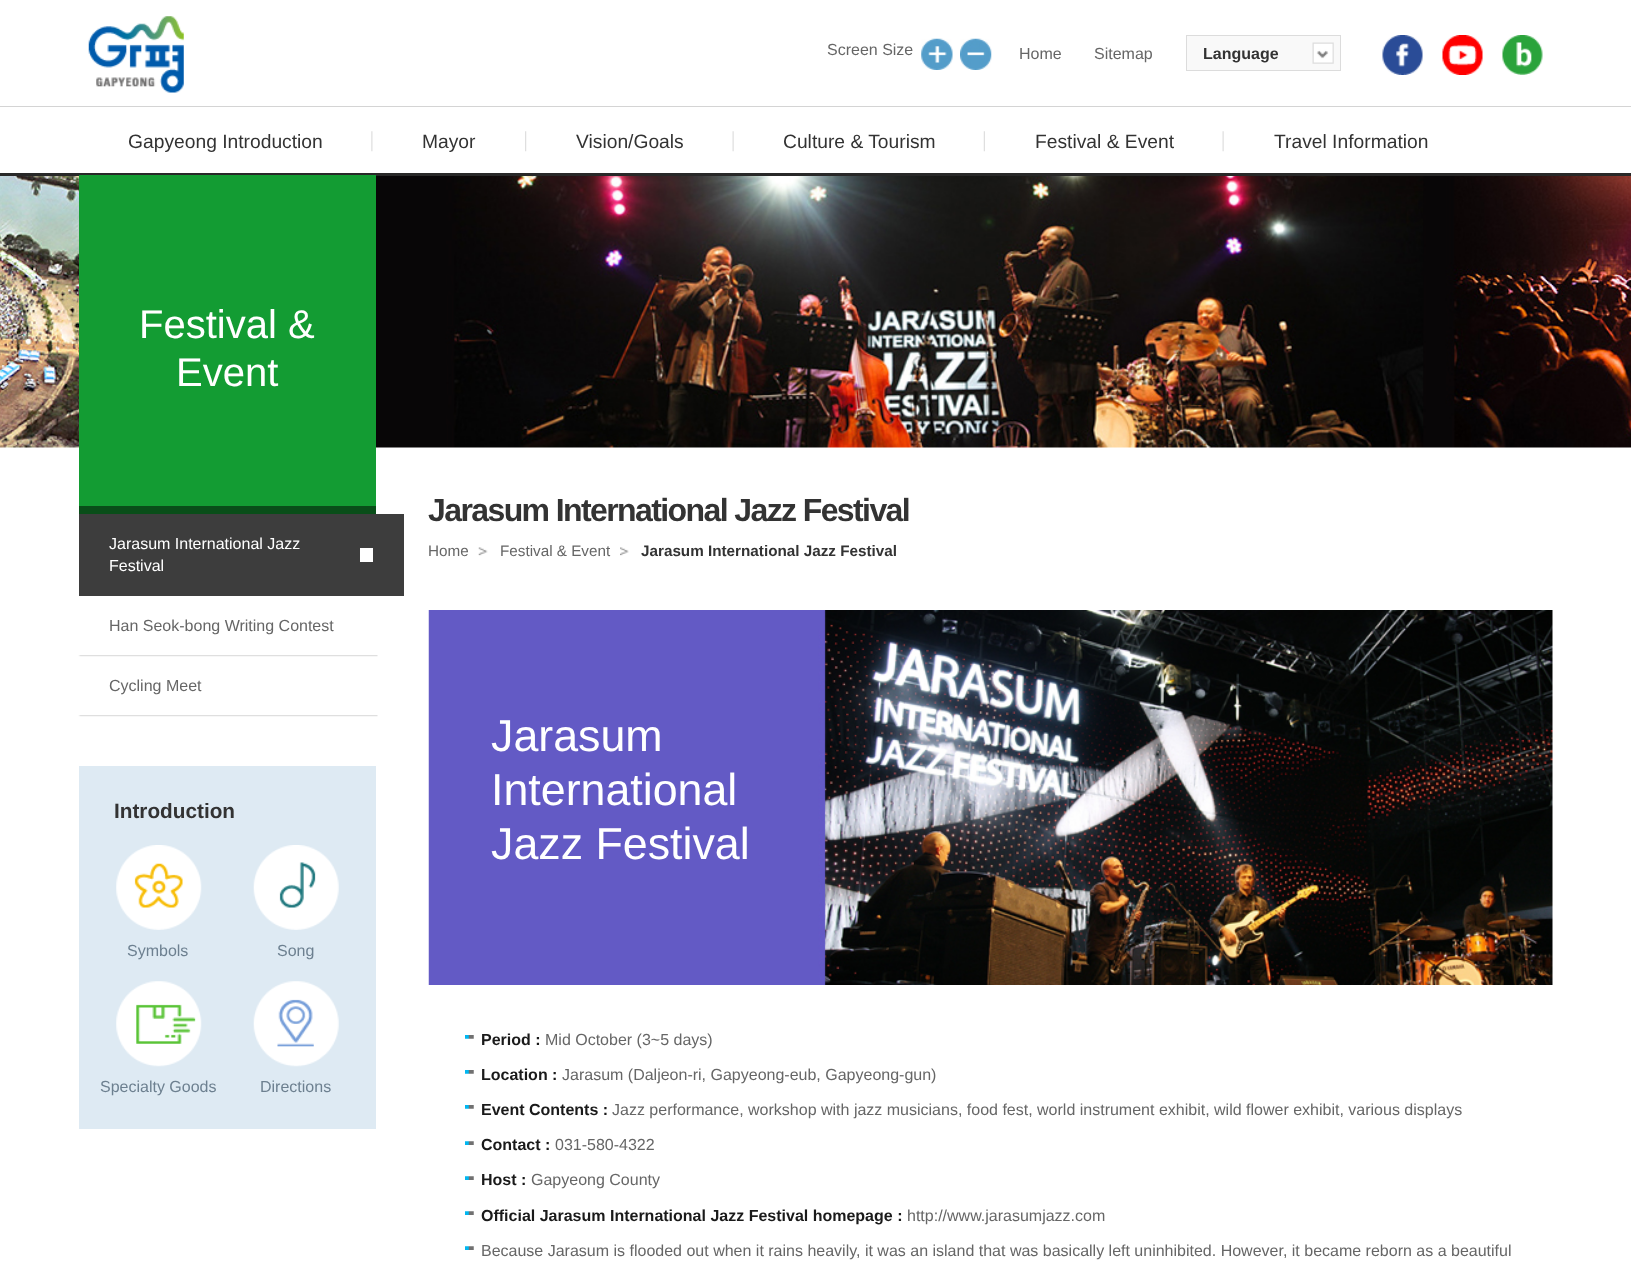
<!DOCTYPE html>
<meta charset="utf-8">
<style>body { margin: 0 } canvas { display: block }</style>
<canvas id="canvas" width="1631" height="1270"></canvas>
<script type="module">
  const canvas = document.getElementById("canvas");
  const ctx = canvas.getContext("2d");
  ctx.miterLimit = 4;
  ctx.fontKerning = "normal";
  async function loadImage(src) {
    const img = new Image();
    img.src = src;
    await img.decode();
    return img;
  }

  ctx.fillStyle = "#ffffff";
  ctx.fillRect(0, 0, 1631, 1270);
  ctx.drawImage(await loadImage("img1.png"), 0, 176, 1631, 272);
  ctx.fillStyle = "#282828";
  ctx.fillRect(0, 173, 1631, 3);
  ctx.drawImage(await loadImage("img2.png"), 88, 16, 96, 77);
  ctx.font = "16px Liberation Sans";
  ctx.fillStyle = "#666666";
  ctx.fillText("Screen Size", 827, 55);
  ctx.drawImage(await loadImage("img3.png"), 921, 38, 32, 32);
  ctx.drawImage(await loadImage("img4.png"), 960, 38, 32, 32);
  ctx.fillText("Home", 1019, 59);
  ctx.fillText("Sitemap", 1094, 59);
  ctx.fillStyle = "#f9f9f9";
  ctx.fillRect(1187, 36, 153, 34);
  ctx.drawImage(await loadImage("img5.png"), 1312, 42, 22, 22);
  ctx.strokeStyle = "#dcdcdc";
  ctx.strokeRect(1186.5, 35.5, 154, 35);
  ctx.font = "bold 16px Liberation Sans";
  ctx.fillStyle = "#333333";
  ctx.fillText("Language", 1203, 59);
  ctx.drawImage(await loadImage("img6.png"), 1382, 35, 41, 40);
  ctx.drawImage(await loadImage("img7.png"), 1442, 35, 41, 40);
  ctx.drawImage(await loadImage("img8.png"), 1502, 35, 41, 40);
  ctx.fillStyle = "#d4d4d4";
  ctx.fillRect(0, 106, 1631, 1);
  ctx.drawImage(await loadImage("img9.png"), 371, 131, 2, 21);
  ctx.font = "19.25px Liberation Sans";
  ctx.fillStyle = "#333333";
  ctx.fillText("Gapyeong Introduction", 128, 148);
  ctx.drawImage(await loadImage("img10.png"), 525, 131, 2, 21);
  ctx.fillText("Mayor", 422, 148);
  ctx.drawImage(await loadImage("img11.png"), 732, 131, 2, 21);
  ctx.fillText("Vision/Goals", 576, 148);
  ctx.drawImage(await loadImage("img12.png"), 983, 131, 2, 21);
  ctx.fillText("Culture & Tourism", 783, 148);
  ctx.drawImage(await loadImage("img11.png"), 1222, 131, 2, 21);
  ctx.fillText("Festival & Event", 1035, 148);
  ctx.fillText("Travel Information", 1274, 148);
  ctx.fillStyle = "#139c33";
  ctx.fillRect(79, 175, 297, 331);
  ctx.fillStyle = "#094e19";
  ctx.fillRect(79, 506, 297, 8);
  ctx.font = "40px Liberation Sans";
  ctx.fillStyle = "#ffffff";
  ctx.fillText("Festival &", 139, 338);
  ctx.fillText("Event", 176, 386);
  ctx.fillStyle = "#3d3d3d";
  ctx.fillRect(79, 514, 325, 82);
  ctx.fillStyle = "#ffffff";
  ctx.fillRect(360, 548, 13, 14);
  ctx.font = "16px Liberation Sans";
  ctx.fillText("Jarasum International Jazz", 109, 549);
  ctx.fillText("Festival", 109, 571);
  ctx.drawImage(await loadImage("img13.png"), 78, 655, 300, 2);
  ctx.fillStyle = "#666666";
  ctx.fillText("Han Seok-bong Writing Contest", 109, 631);
  ctx.drawImage(await loadImage("img13.png"), 78, 715, 300, 2);
  ctx.fillText("Cycling Meet", 109, 691);
  ctx.fillStyle = "#deeaf3";
  ctx.fillRect(79, 766, 297, 363);
  ctx.font = "bold 20.75px Liberation Sans";
  ctx.fillStyle = "#333333";
  ctx.fillText("Introduction", 114, 818);
  ctx.drawImage(await loadImage("img14.png"), 116, 845, 86, 85);
  ctx.font = "16px Liberation Sans";
  ctx.fillStyle = "#6d8090";
  ctx.fillText("Symbols", 127, 956);
  ctx.drawImage(await loadImage("img15.png"), 253, 845, 86, 85);
  ctx.fillText("Song", 277, 956);
  ctx.drawImage(await loadImage("img16.png"), 116, 981, 86, 86);
  ctx.fillText("Specialty Goods", 100, 1092);
  ctx.drawImage(await loadImage("img17.png"), 253, 981, 86, 86);
  ctx.fillText("Directions", 260, 1092);
  ctx.letterSpacing = "-1.6px";
  ctx.font = "bold 32px Liberation Sans";
  ctx.fillStyle = "#333333";
  ctx.fillText("Jarasum International Jazz Festival", 428, 521);
  ctx.drawImage(await loadImage("img18.png"), 478, 547, 10, 9);
  ctx.letterSpacing = "0px";
  ctx.font = "15.25px Liberation Sans";
  ctx.fillStyle = "#666666";
  ctx.fillText("Home", 428, 556);
  ctx.drawImage(await loadImage("img19.png"), 620, 547, 9, 9);
  ctx.fillText("Festival & Event", 500, 556);
  ctx.font = "bold 15.25px Liberation Sans";
  ctx.fillStyle = "#333333";
  ctx.fillText("Jarasum International Jazz Festival", 641, 556);
  ctx.drawImage(await loadImage("img20.png"), 428, 610, 1125, 375);
  ctx.font = "44.75px Liberation Sans";
  ctx.fillStyle = "#ffffff";
  ctx.fillText("Jarasum", 491, 751);
  ctx.fillText("International", 491, 805);
  ctx.fillText("Jazz Festival", 491, 859);
  ctx.drawImage(await loadImage("img21.png"), 465, 1035, 9, 4);
  ctx.font = "bold 16px Liberation Sans";
  ctx.fillStyle = "#1a1a1a";
  ctx.fillText("Period :", 481, 1045);
  ctx.font = "16px Liberation Sans";
  ctx.fillStyle = "#666666";
  ctx.fillText("Mid October (3~5 days)", 545, 1045);
  ctx.drawImage(await loadImage("img21.png"), 465, 1070, 9, 4);
  ctx.font = "bold 16px Liberation Sans";
  ctx.fillStyle = "#1a1a1a";
  ctx.fillText("Location :", 481, 1080);
  ctx.font = "16px Liberation Sans";
  ctx.fillStyle = "#666666";
  ctx.fillText("Jarasum (Daljeon-ri, Gapyeong-eub, Gapyeong-gun)", 562, 1080);
  ctx.drawImage(await loadImage("img21.png"), 465, 1105, 9, 4);
  ctx.font = "bold 16px Liberation Sans";
  ctx.fillStyle = "#1a1a1a";
  ctx.fillText("Event Contents :", 481, 1115);
  ctx.font = "16px Liberation Sans";
  ctx.fillStyle = "#666666";
  ctx.fillText("Jazz performance, workshop with jazz musicians, food fest, world instrument exhibit, wild flower exhibit, various displays", 612, 1115);
  ctx.drawImage(await loadImage("img22.png"), 465, 1141, 9, 4);
  ctx.font = "bold 16px Liberation Sans";
  ctx.fillStyle = "#1a1a1a";
  ctx.fillText("Contact :", 481, 1150);
  ctx.font = "16px Liberation Sans";
  ctx.fillStyle = "#666666";
  ctx.fillText("031-580-4322", 555, 1150);
  ctx.drawImage(await loadImage("img22.png"), 465, 1176, 9, 4);
  ctx.font = "bold 16px Liberation Sans";
  ctx.fillStyle = "#1a1a1a";
  ctx.fillText("Host :", 481, 1185);
  ctx.font = "16px Liberation Sans";
  ctx.fillStyle = "#666666";
  ctx.fillText("Gapyeong County", 531, 1185);
  ctx.drawImage(await loadImage("img22.png"), 465, 1211, 9, 4);
  ctx.font = "bold 16px Liberation Sans";
  ctx.fillStyle = "#1a1a1a";
  ctx.fillText("Official Jarasum International Jazz Festival homepage :", 481, 1221);
  ctx.font = "16px Liberation Sans";
  ctx.fillStyle = "#666666";
  ctx.fillText("http://www.jarasumjazz.com", 907, 1221);
  ctx.drawImage(await loadImage("img22.png"), 465, 1246, 9, 4);
  ctx.fillText("Because Jarasum is flooded out when it rains heavily, it was an island that was basically left uninhibited. However, it became reborn as a beautiful", 481, 1256);
</script>
